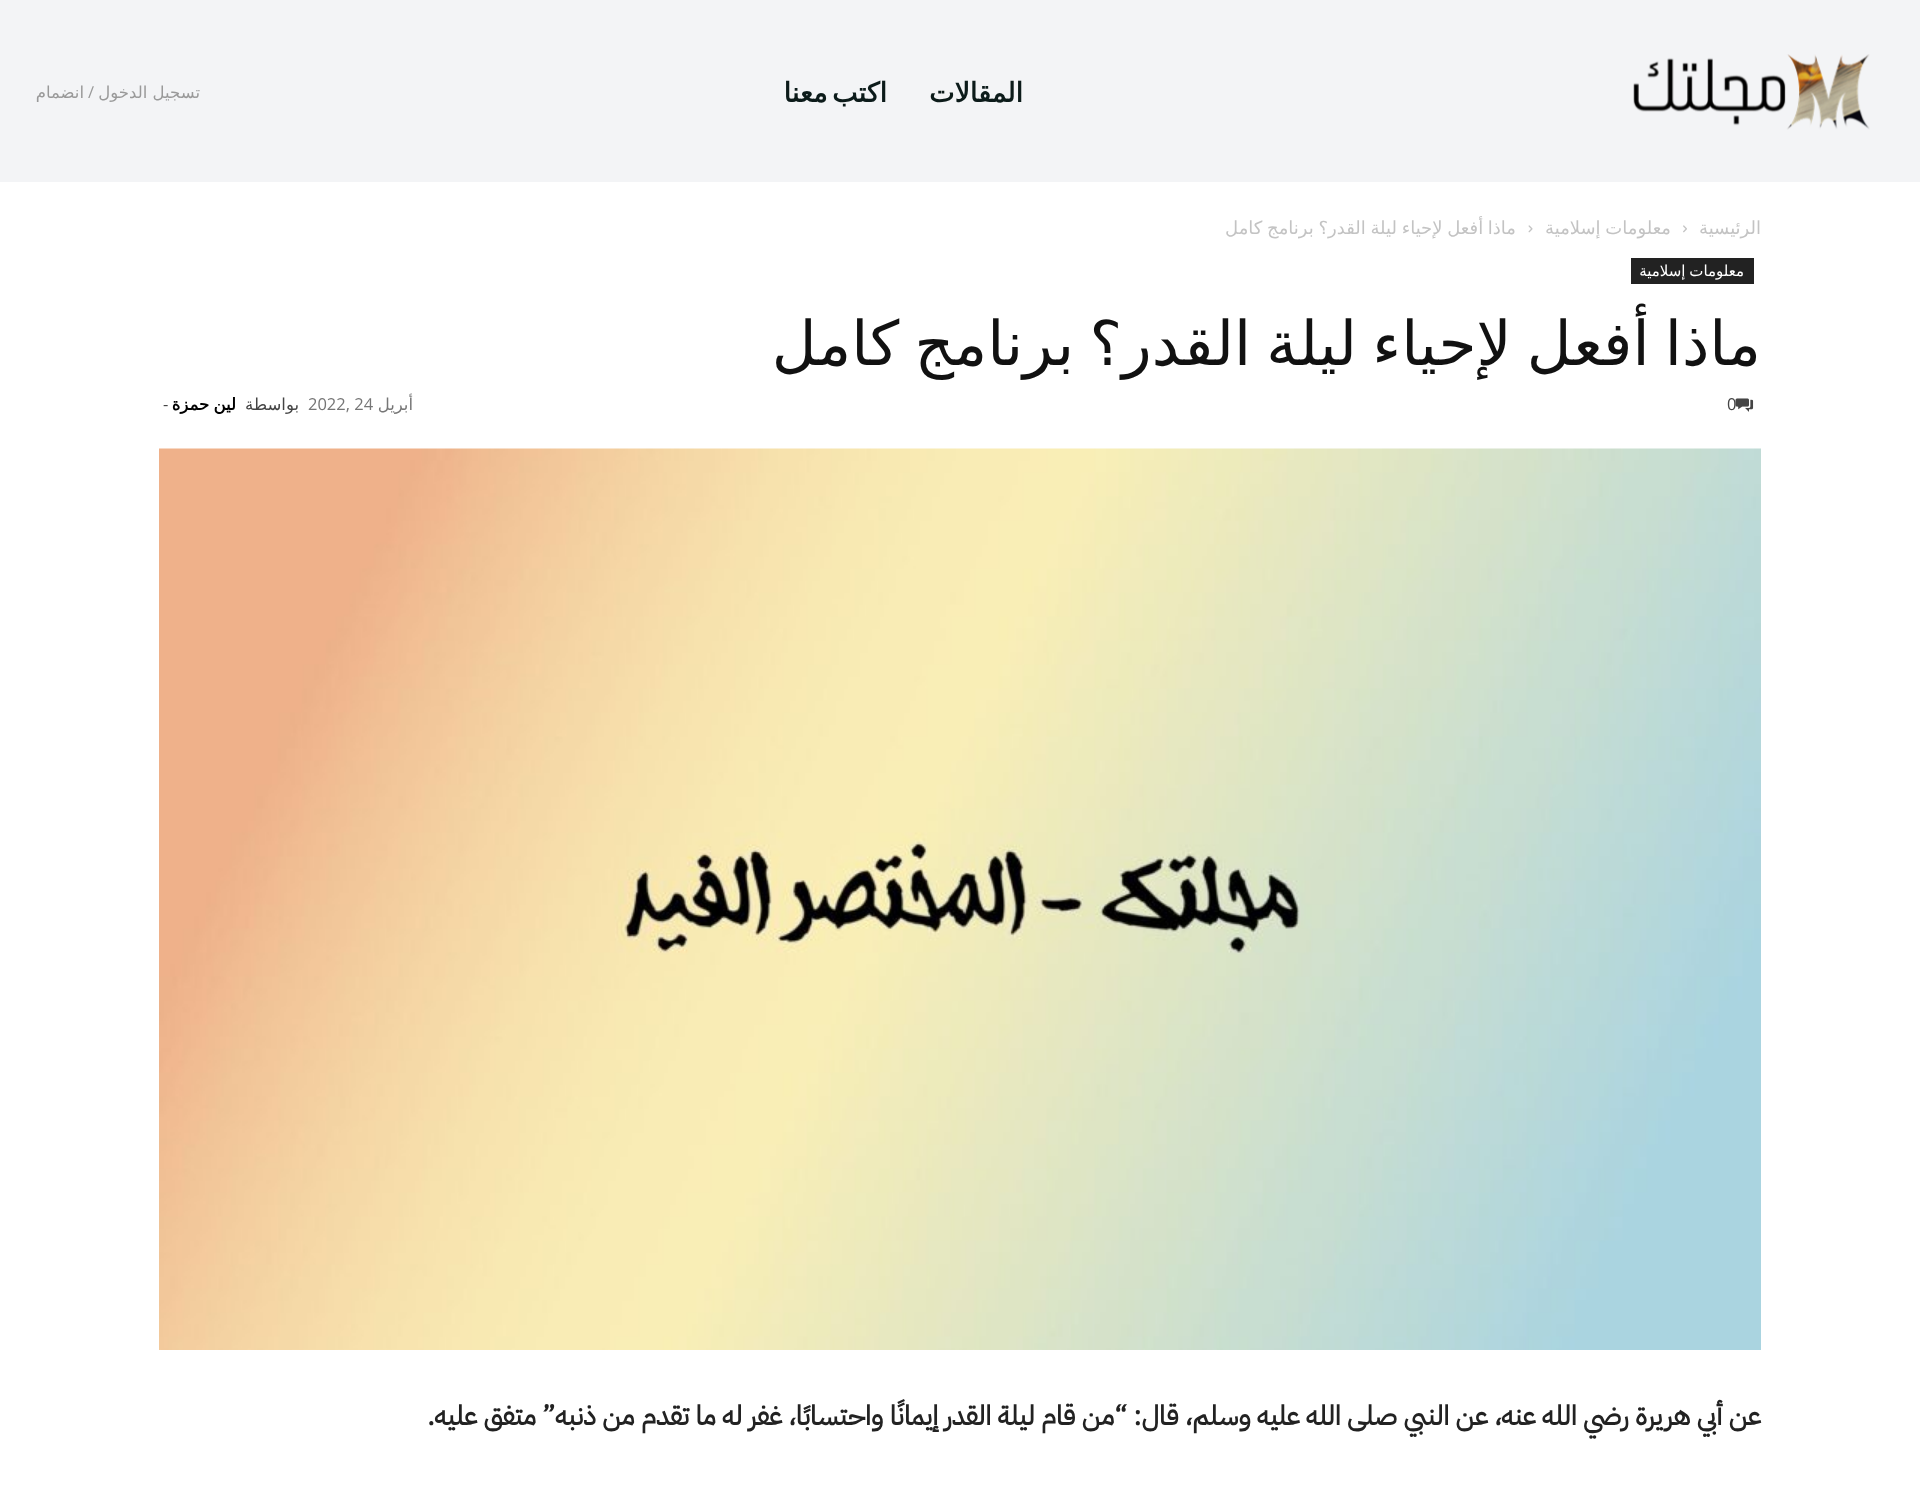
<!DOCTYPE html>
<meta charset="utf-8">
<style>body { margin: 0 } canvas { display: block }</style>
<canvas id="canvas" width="1920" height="1493"></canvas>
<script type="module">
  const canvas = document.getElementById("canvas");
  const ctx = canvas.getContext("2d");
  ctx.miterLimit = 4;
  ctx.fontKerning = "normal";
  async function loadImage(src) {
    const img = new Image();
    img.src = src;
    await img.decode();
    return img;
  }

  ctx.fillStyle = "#ffffff";
  ctx.fillRect(0, 0, 1920, 1493);
  ctx.fillStyle = "#f3f4f6";
  ctx.fillRect(0, 0, 1920, 182);
  ctx.drawImage(await loadImage("img1.png"), 1633, 54, 237, 76);
  ctx.direction = "rtl";
  ctx.font = "bold 27px DejaVu Sans";
  ctx.fillStyle = "#0c1b1a";
  ctx.fillText("المقالات", 1023, 102);
  ctx.wordSpacing = "-4px";
  ctx.fillText("اكتب معنا", 887, 102);
  ctx.wordSpacing = "0px";
  ctx.font = "16.5px DejaVu Sans";
  ctx.fillStyle = "#999999";
  ctx.fillText("تسجيل الدخول", 200, 98);
  ctx.font = "16.5px Open Sans";
  ctx.fillText("/", 94, 98);
  ctx.font = "16.5px DejaVu Sans";
  ctx.fillText("انضمام", 84, 98);
  ctx.font = "18px DejaVu Sans";
  ctx.fillStyle = "#c3c3c3";
  ctx.fillText("الرئيسية", 1761, 234);
  ctx.drawImage(await loadImage("img2.png"), 1683, 225, 4, 8);
  ctx.wordSpacing = "-1px";
  ctx.fillText("معلومات إسلامية", 1671, 234);
  ctx.drawImage(await loadImage("img3.png"), 1528, 225, 5, 8);
  ctx.fillText("ماذا أفعل لإحياء ليلة القدر؟ برنامج كامل", 1516, 234);
  ctx.fillStyle = "#222222";
  ctx.fillRect(1631, 258, 123, 26);
  ctx.font = "15px DejaVu Sans";
  ctx.fillStyle = "#ffffff";
  ctx.fillText("معلومات إسلامية", 1744, 276);
  ctx.wordSpacing = "-4.25px";
  ctx.font = "61.5px DejaVu Sans";
  ctx.fillStyle = "#111111";
  ctx.fillText("ماذا أفعل لإحياء ليلة القدر؟ برنامج كامل", 1761, 365);
  ctx.drawImage(await loadImage("img4.png"), 1735, 398, 19, 14);
  ctx.wordSpacing = "0px";
  ctx.direction = "ltr";
  ctx.font = "16.5px Open Sans";
  ctx.fillStyle = "#444444";
  ctx.fillText("0", 1727, 410);
  ctx.direction = "rtl";
  ctx.font = "16.5px DejaVu Sans";
  ctx.fillStyle = "#767676";
  ctx.fillText("أبريل", 413, 410);
  ctx.direction = "ltr";
  ctx.font = "16.5px Open Sans";
  ctx.fillText("2022, 24", 308, 410);
  ctx.direction = "rtl";
  ctx.font = "16.5px DejaVu Sans";
  ctx.fillStyle = "#444444";
  ctx.fillText("بواسطة", 299, 410);
  ctx.wordSpacing = "-1px";
  ctx.font = "bold 16.5px DejaVu Sans";
  ctx.fillStyle = "#000000";
  ctx.fillText("لين حمزة", 236, 410);
  ctx.wordSpacing = "0px";
  ctx.direction = "ltr";
  ctx.font = "16.5px Open Sans";
  ctx.fillStyle = "#444444";
  ctx.fillText("-", 163, 410);
  ctx.drawImage(await loadImage("img5.png"), 159, 448, 1602, 902);
  ctx.direction = "rtl";
  ctx.font = "bold 27px IBM Plex Sans Arabic";
  ctx.fillStyle = "#222222";
  ctx.fillText("عن أبي هريرة رضي الله عنه، عن النبي صلى الله عليه وسلم، قال:", 1761, 1425);
  ctx.fillText("“من قام ليلة القدر إيمانًا واحتسابًا، غفر له ما تقدم من ذنبه” متفق عليه.", 1127, 1425);
</script>
